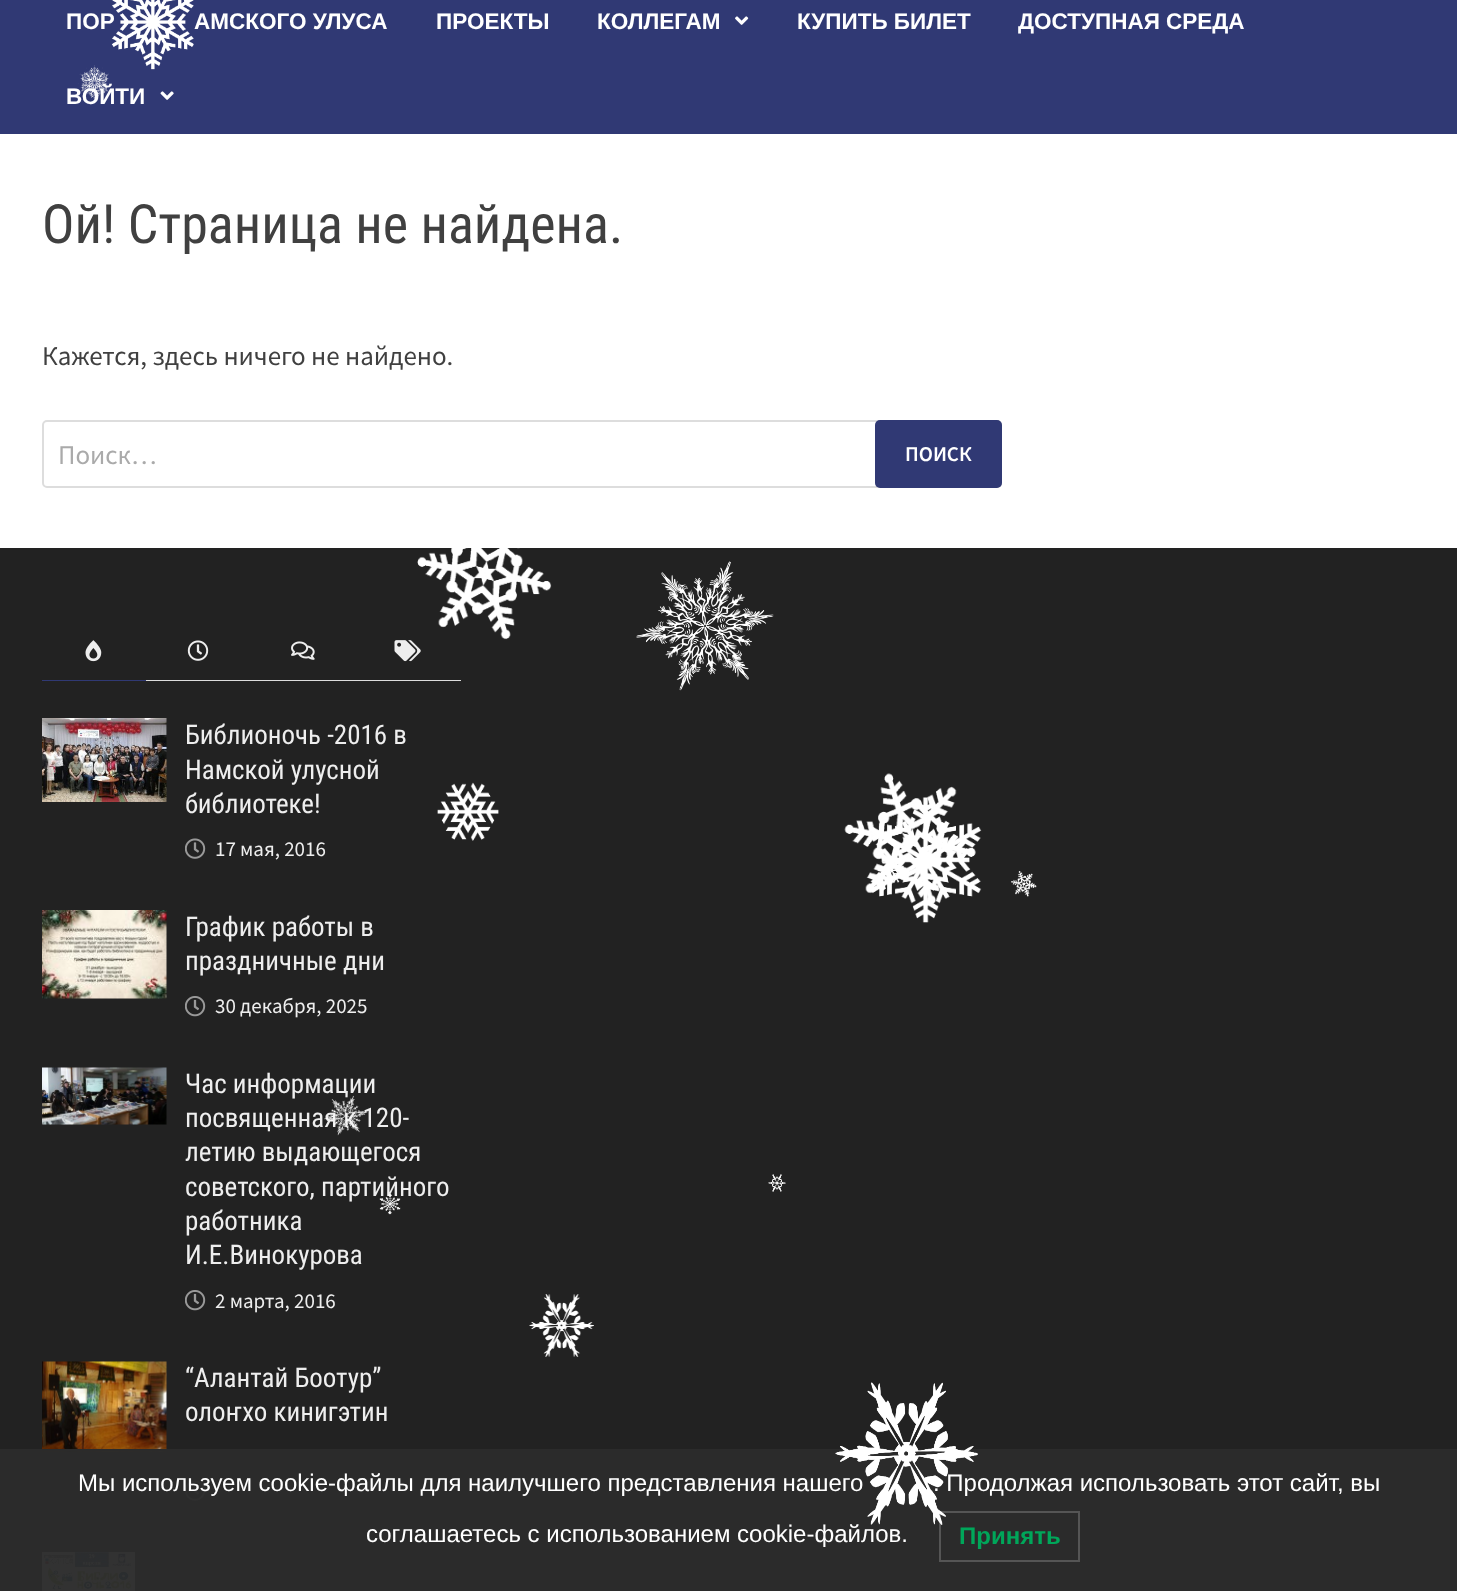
<!DOCTYPE html>
<meta charset="utf-8">
<style>body { margin: 0 } canvas { display: block }</style>
<canvas id="canvas" width="1457" height="1591"></canvas>
<script type="module">
  const canvas = document.getElementById("canvas");
  const ctx = canvas.getContext("2d");
  ctx.miterLimit = 4;
  ctx.fontKerning = "normal";
  async function loadImage(src) {
    const img = new Image();
    img.src = src;
    await img.decode();
    return img;
  }

  ctx.fillStyle = "#ffffff";
  ctx.fillRect(0, 0, 1457, 1591);
  ctx.fillStyle = "#303974";
  ctx.fillRect(0, 0, 1457, 134);
  ctx.font = "bold 22.5px Liberation Sans";
  ctx.fillStyle = "#ffffff";
  ctx.fillText("ПОР", 66, 29);
  ctx.drawImage(await loadImage("img1.png"), 111, 0, 83, 70);
  ctx.fillText("АМСКОГО УЛУСА", 194, 29);
  ctx.fillText("ПРОЕКТЫ", 436, 29);
  ctx.fillText("КОЛЛЕГАМ", 597, 29);
  ctx.drawImage(await loadImage("img2.png"), 735, 16, 14, 9);
  ctx.fillText("КУПИТЬ БИЛЕТ", 797, 29);
  ctx.fillText("ДОСТУПНАЯ СРЕДА", 1018, 29);
  ctx.fillText("ВОЙТИ", 66, 104);
  ctx.drawImage(await loadImage("img3.png"), 160, 91, 14, 9);
  ctx.font = "54px Roboto Condensed";
  ctx.fillStyle = "#404040";
  ctx.fillText("Ой! Страница не найдена.", 42, 243);
  ctx.font = "27px Source Sans Pro";
  ctx.fillText("Кажется, здесь ничего не найдено.", 42, 365);
  ctx.beginPath();
  ctx.roundRect(43, 421, 958, 66, 4);
  ctx.strokeStyle = "#dddddd";
  ctx.lineWidth = 2;
  ctx.stroke();
  ctx.fillStyle = "#aaaaaa";
  ctx.fillText("Поиск…", 58, 464);
  ctx.fillStyle = "#303974";
  ctx.beginPath();
  ctx.roundRect(875, 420, 127, 68, 5);
  ctx.fill();
  ctx.font = "600 21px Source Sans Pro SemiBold";
  ctx.fillStyle = "#ffffff";
  ctx.fillText("ПОИСК", 905, 461);
  ctx.fillStyle = "#222222";
  ctx.fillRect(0, 548, 1457, 1043);
  ctx.fillStyle = "#303974";
  ctx.fillRect(42, 680, 104, 1);
  ctx.drawImage(await loadImage("img4.png"), 85, 640, 17, 22);
  ctx.fillStyle = "#dddddd";
  ctx.fillRect(146, 680, 315, 1);
  ctx.drawImage(await loadImage("img5.png"), 187, 640, 22, 21);
  ctx.drawImage(await loadImage("img6.png"), 291, 641, 24, 19);
  ctx.drawImage(await loadImage("img7.png"), 394, 640, 27, 22);
  ctx.drawImage(await loadImage("img8.png"), 42, 718, 125, 84);
  ctx.font = "27px Roboto Condensed";
  ctx.fillStyle = "#eeeeee";
  ctx.fillText("Библионочь -2016 в", 185, 744);
  ctx.fillText("Намской улусной", 185, 779);
  ctx.fillText("библиотеке!", 185, 813);
  ctx.drawImage(await loadImage("img9.png"), 185, 838, 21, 21);
  ctx.font = "21px Source Sans Pro";
  ctx.fillText("17 мая, 2016", 215, 856);
  ctx.drawImage(await loadImage("img10.png"), 42, 910, 125, 89);
  ctx.font = "27px Roboto Condensed";
  ctx.fillText("График работы в", 185, 936);
  ctx.fillText("праздничные дни", 185, 970);
  ctx.drawImage(await loadImage("img11.png"), 185, 996, 21, 21);
  ctx.font = "21px Source Sans Pro";
  ctx.fillText("30 декабря, 2025", 215, 1013);
  ctx.drawImage(await loadImage("img12.png"), 42, 1067, 125, 58);
  ctx.font = "27px Roboto Condensed";
  ctx.fillText("Час информации", 185, 1093);
  ctx.fillText("посвященная к 120-", 185, 1127);
  ctx.fillText("летию выдающегося", 185, 1161);
  ctx.fillText("советского, партийного", 185, 1196);
  ctx.fillText("работника", 185, 1230);
  ctx.fillText("И.Е.Винокурова", 185, 1264);
  ctx.drawImage(await loadImage("img11.png"), 185, 1290, 21, 21);
  ctx.font = "21px Source Sans Pro";
  ctx.fillText("2 марта, 2016", 215, 1308);
  ctx.drawImage(await loadImage("img13.png"), 42, 1361, 125, 91);
  ctx.font = "27px Roboto Condensed";
  ctx.fillText("“Алантай Боотур”", 185, 1387);
  ctx.fillText("олоҥхо кинигэтин", 185, 1421);
  ctx.drawImage(await loadImage("img9.png"), 185, 1480, 21, 21);
  ctx.drawImage(await loadImage("img14.png"), 42, 1552, 93, 39);
  ctx.drawImage(await loadImage("img15.png"), 78, 65, 31, 34);
  ctx.drawImage(await loadImage("img16.png"), 417, 548, 135, 92);
  ctx.drawImage(await loadImage("img17.png"), 636, 561, 138, 130);
  ctx.drawImage(await loadImage("img18.png"), 437, 782, 62, 59);
  ctx.drawImage(await loadImage("img19.png"), 844, 773, 132, 131);
  ctx.drawImage(await loadImage("img21.png"), 877, 857, 27, 26);
  ctx.drawImage(await loadImage("img20.png"), 870, 797, 112, 126);
  ctx.drawImage(await loadImage("img22.png"), 1011, 871, 26, 26);
  ctx.drawImage(await loadImage("img23.png"), 324, 1095, 44, 41);
  ctx.drawImage(await loadImage("img24.png"), 768, 1174, 18, 18);
  ctx.drawImage(await loadImage("img25.png"), 379, 1194, 22, 21);
  ctx.drawImage(await loadImage("img26.png"), 529, 1294, 65, 63);
  ctx.fillStyle = "rgba(43, 43, 43, 0.97)";
  ctx.fillRect(0, 1451, 1457, 140);
  ctx.fillStyle = "#2b2b2b";
  ctx.fillRect(0, 1449, 1457, 2);
  ctx.font = "24px Liberation Sans";
  ctx.fillStyle = "#ffffff";
  ctx.fillText("Мы используем cookie-файлы для наилучшего представления нашего", 78, 1491);
  ctx.fillText(". Продолжая использовать этот сайт, вы", 933, 1491);
  ctx.fillText("соглашаетесь с использованием cookie-файлов.", 366, 1542);
  ctx.strokeStyle = "#555555";
  ctx.strokeRect(940, 1512, 139, 49);
  ctx.drawImage(await loadImage("img27.png"), 835, 1382, 143, 143);
  ctx.font = "bold 24px Liberation Sans";
  ctx.fillStyle = "#00a65a";
  ctx.fillText("Принять", 959, 1544);
</script>
